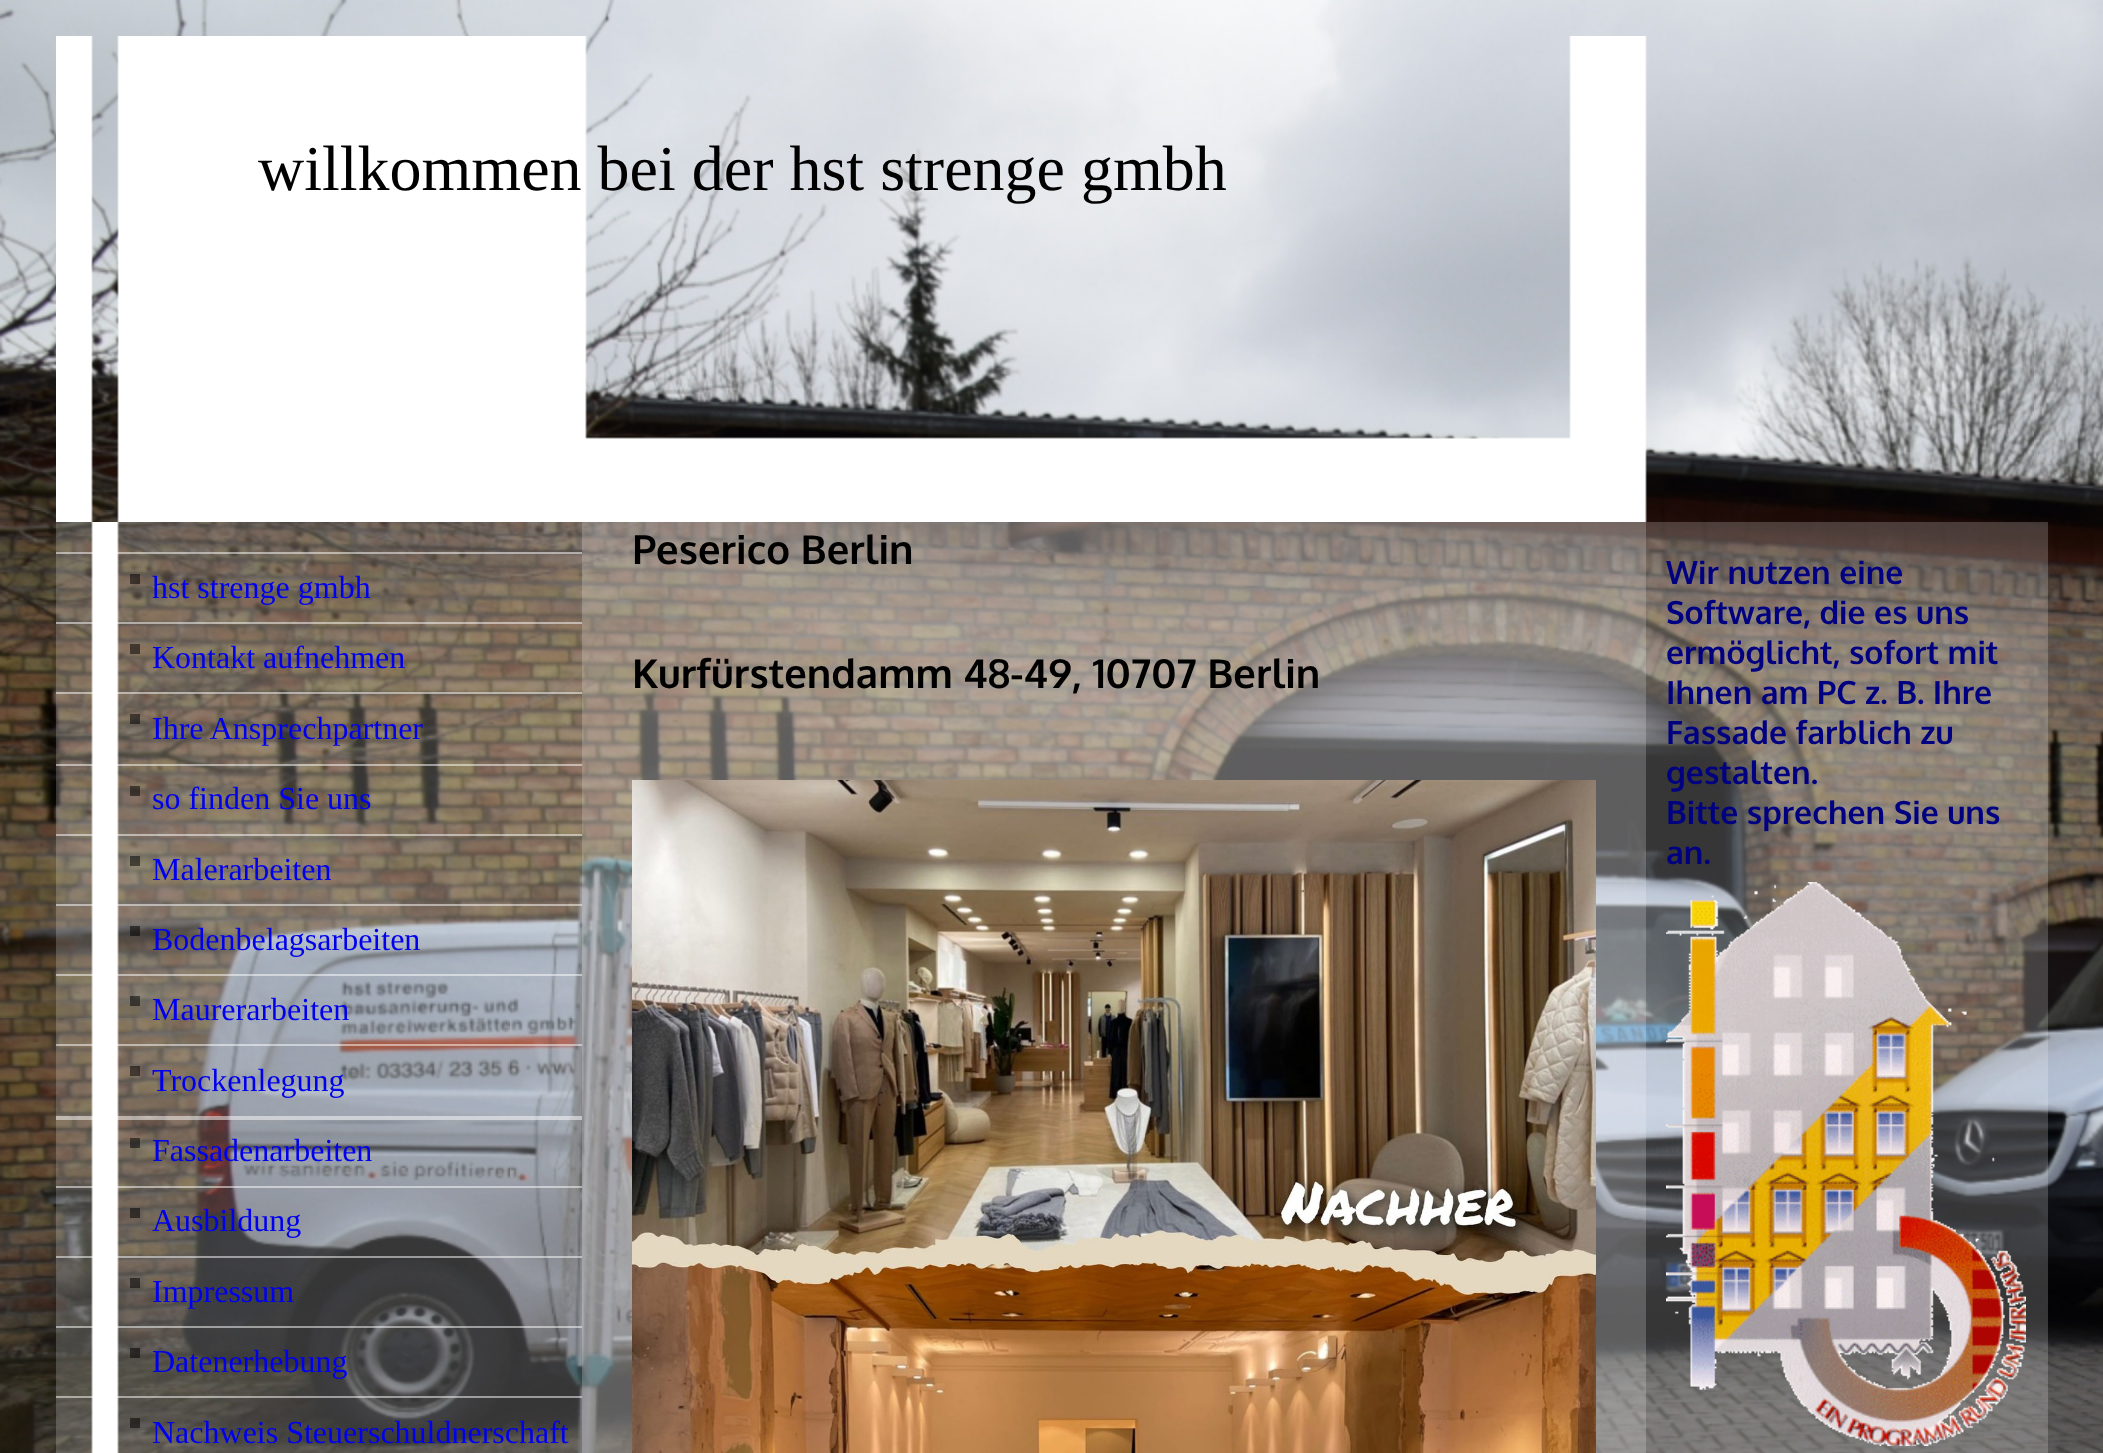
<!DOCTYPE html>
<meta charset="utf-8">
<style>body { margin: 0 } canvas { display: block }</style>
<canvas id="canvas" width="2103" height="1453"></canvas>
<script type="module">
  const canvas = document.getElementById("canvas");
  const ctx = canvas.getContext("2d");
  ctx.miterLimit = 4;
  ctx.fontKerning = "normal";
  async function loadImage(src) {
    const img = new Image();
    img.src = src;
    await img.decode();
    return img;
  }

  ctx.fillStyle = "#ffffff";
  ctx.fillRect(0, 0, 2103, 1453);
  ctx.drawImage(await loadImage("img1.png"), 0, 0, 2103, 1453);
  ctx.drawImage(await loadImage("img2.png"), 56, 36, 1591, 486);
  ctx.font = "64px Liberation Serif";
  ctx.fillStyle = "#000000";
  ctx.fillText("willkommen bei der hst strenge gmbh", 258, 190);
  ctx.drawImage(await loadImage("img3.png"), 56, 522, 526, 931);
  ctx.fillStyle = "rgba(0, 0, 0, 0.52)";
  ctx.fillRect(130, 574, 10, 10);
  ctx.fillStyle = "rgba(255, 255, 255, 0.5)";
  ctx.fillRect(56, 552, 526, 2);
  ctx.font = "32px Liberation Serif";
  ctx.fillStyle = "#0000ee";
  ctx.fillText("hst strenge gmbh", 152, 598);
  ctx.fillStyle = "rgba(0, 0, 0, 0.52)";
  ctx.fillRect(130, 644, 10, 10);
  ctx.fillStyle = "rgba(255, 255, 255, 0.5)";
  ctx.fillRect(56, 622, 526, 2);
  ctx.fillStyle = "#0000ee";
  ctx.fillText("Kontakt aufnehmen", 152, 668);
  ctx.fillStyle = "rgba(0, 0, 0, 0.52)";
  ctx.fillRect(130, 714, 10, 10);
  ctx.fillStyle = "rgba(255, 255, 255, 0.5)";
  ctx.fillRect(56, 692, 526, 2);
  ctx.fillStyle = "#0000ee";
  ctx.fillText("Ihre Ansprechpartner", 152, 739);
  ctx.fillStyle = "rgba(0, 0, 0, 0.52)";
  ctx.fillRect(130, 786, 10, 10);
  ctx.fillStyle = "rgba(255, 255, 255, 0.5)";
  ctx.fillRect(56, 764, 526, 2);
  ctx.fillStyle = "#0000ee";
  ctx.fillText("so finden Sie uns", 152, 809);
  ctx.fillStyle = "rgba(0, 0, 0, 0.52)";
  ctx.fillRect(130, 856, 10, 10);
  ctx.fillStyle = "rgba(255, 255, 255, 0.5)";
  ctx.fillRect(56, 834, 526, 2);
  ctx.fillStyle = "#0000ee";
  ctx.fillText("Malerarbeiten", 152, 880);
  ctx.fillStyle = "rgba(0, 0, 0, 0.52)";
  ctx.fillRect(130, 926, 10, 10);
  ctx.fillStyle = "rgba(255, 255, 255, 0.5)";
  ctx.fillRect(56, 904, 526, 2);
  ctx.fillStyle = "#0000ee";
  ctx.fillText("Bodenbelagsarbeiten", 152, 950);
  ctx.fillStyle = "rgba(0, 0, 0, 0.52)";
  ctx.fillRect(130, 996, 10, 10);
  ctx.fillStyle = "rgba(255, 255, 255, 0.5)";
  ctx.fillRect(56, 974, 526, 2);
  ctx.fillStyle = "#0000ee";
  ctx.fillText("Maurerarbeiten", 152, 1020);
  ctx.fillStyle = "rgba(0, 0, 0, 0.52)";
  ctx.fillRect(130, 1066, 10, 10);
  ctx.fillStyle = "rgba(255, 255, 255, 0.5)";
  ctx.fillRect(56, 1044, 526, 2);
  ctx.fillStyle = "#0000ee";
  ctx.fillText("Trockenlegung", 152, 1091);
  ctx.fillStyle = "rgba(0, 0, 0, 0.52)";
  ctx.fillRect(130, 1138, 10, 10);
  ctx.fillStyle = "rgba(255, 255, 255, 0.5)";
  ctx.fillRect(56, 1116, 526, 4);
  ctx.fillStyle = "#0000ee";
  ctx.fillText("Fassadenarbeiten", 152, 1161);
  ctx.fillStyle = "rgba(0, 0, 0, 0.52)";
  ctx.fillRect(130, 1208, 10, 10);
  ctx.fillStyle = "rgba(255, 255, 255, 0.5)";
  ctx.fillRect(56, 1186, 526, 2);
  ctx.fillStyle = "#0000ee";
  ctx.fillText("Ausbildung", 152, 1231);
  ctx.fillStyle = "rgba(0, 0, 0, 0.52)";
  ctx.fillRect(130, 1278, 10, 10);
  ctx.fillStyle = "rgba(255, 255, 255, 0.5)";
  ctx.fillRect(56, 1256, 526, 2);
  ctx.fillStyle = "#0000ee";
  ctx.fillText("Impressum", 152, 1302);
  ctx.fillStyle = "rgba(0, 0, 0, 0.52)";
  ctx.fillRect(130, 1348, 10, 10);
  ctx.fillStyle = "rgba(255, 255, 255, 0.5)";
  ctx.fillRect(56, 1326, 526, 2);
  ctx.fillStyle = "#0000ee";
  ctx.fillText("Datenerhebung", 152, 1372);
  ctx.fillStyle = "rgba(0, 0, 0, 0.52)";
  ctx.fillRect(130, 1418, 10, 10);
  ctx.fillStyle = "rgba(255, 255, 255, 0.5)";
  ctx.fillRect(56, 1396, 526, 2);
  ctx.fillStyle = "#0000ee";
  ctx.fillText("Nachweis Steuerschuldnerschaft", 152, 1443);
  ctx.fillStyle = "rgba(255, 255, 255, 0.36)";
  ctx.fillRect(582, 522, 1064, 931);
  ctx.font = "bold 40px Oxygen";
  ctx.fillStyle = "#000000";
  ctx.fillText("Peserico Berlin", 632, 564);
  ctx.fillText("Kurfürstendamm 48-49, 10707 Berlin", 632, 688);
  ctx.drawImage(await loadImage("img4.png"), 632, 780, 964, 673);
  ctx.fillStyle = "rgba(255, 255, 255, 0.2)";
  ctx.fillRect(1646, 522, 402, 931);
  ctx.font = "bold 32px Oxygen";
  ctx.fillStyle = "#000080";
  ctx.fillText("Wir nutzen eine", 1666, 584);
  ctx.fillText("Software, die es uns", 1666, 624);
  ctx.fillText("ermöglicht, sofort mit", 1666, 664);
  ctx.fillText("Ihnen am PC z. B. Ihre", 1666, 704);
  ctx.fillText("Fassade farblich zu", 1666, 744);
  ctx.fillText("gestalten.", 1666, 784);
  ctx.fillText("Bitte sprechen Sie uns", 1666, 824);
  ctx.fillText("an.", 1666, 864);
  ctx.drawImage(await loadImage("img5.png"), 1666, 882, 360, 564);
</script>
